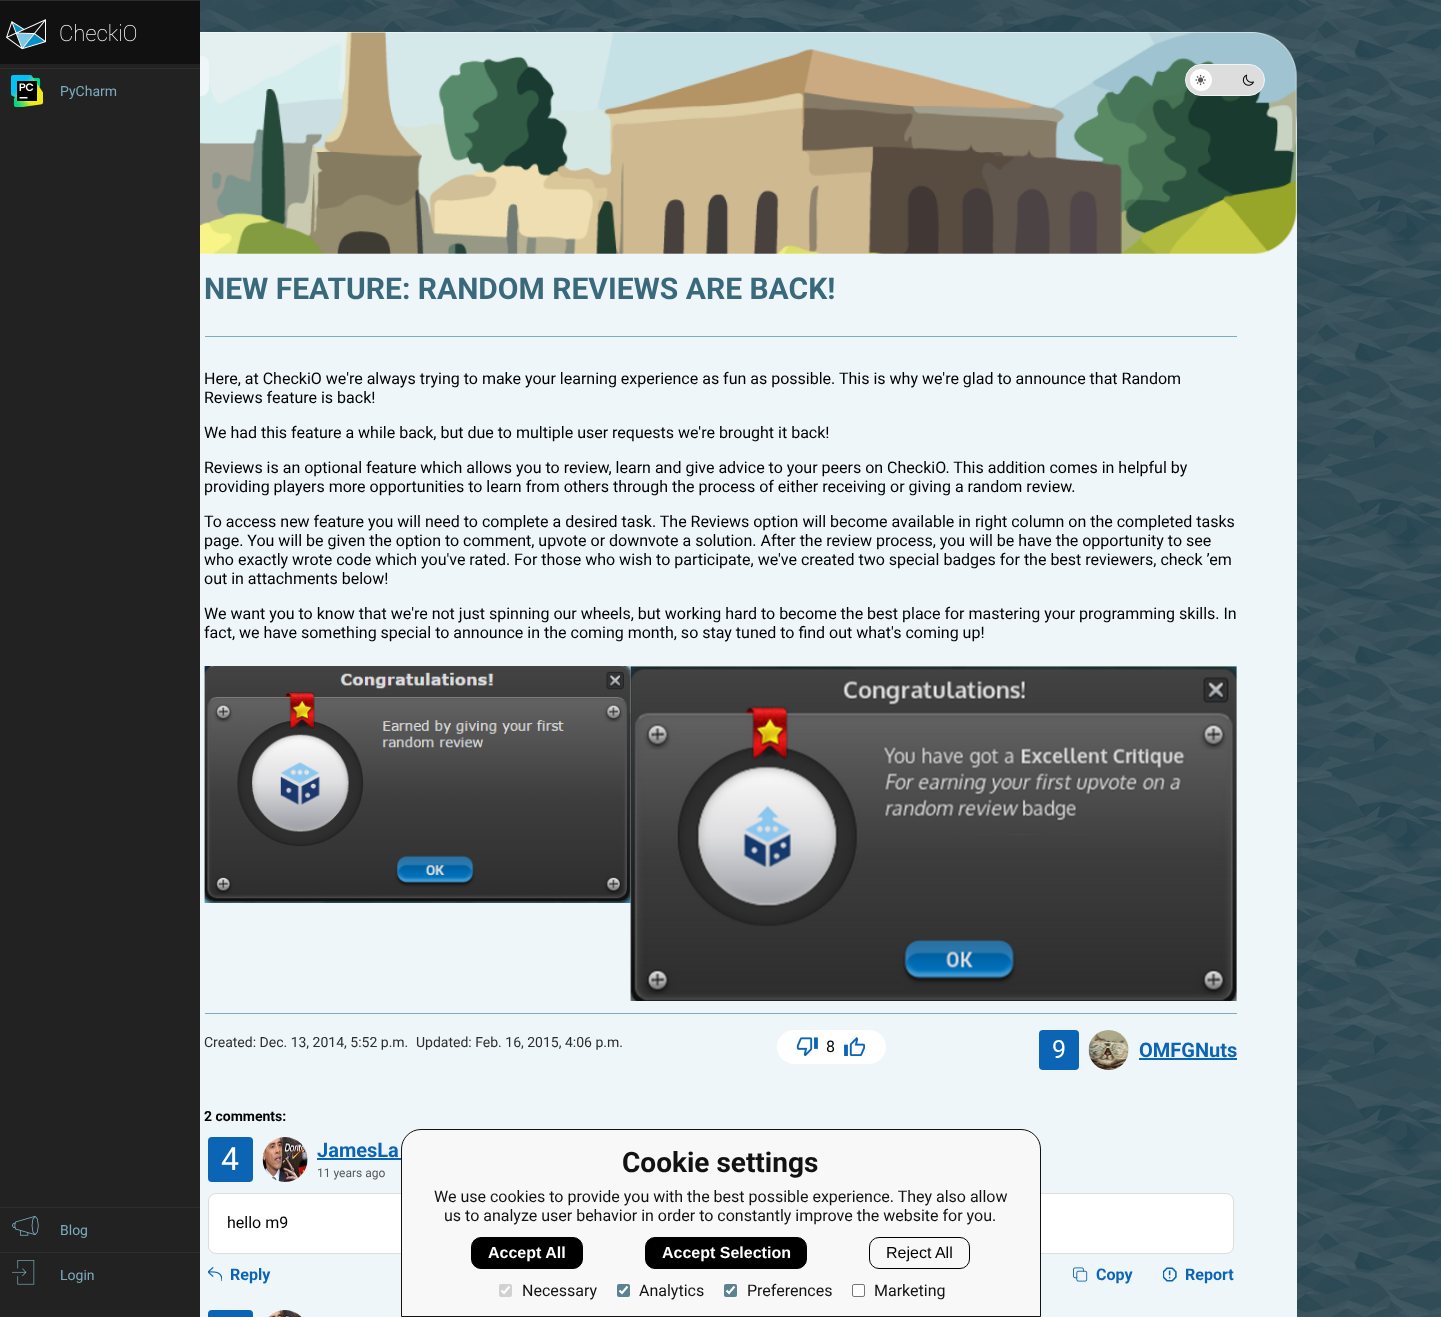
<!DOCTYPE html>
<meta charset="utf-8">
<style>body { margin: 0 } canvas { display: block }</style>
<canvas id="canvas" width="1441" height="1317"></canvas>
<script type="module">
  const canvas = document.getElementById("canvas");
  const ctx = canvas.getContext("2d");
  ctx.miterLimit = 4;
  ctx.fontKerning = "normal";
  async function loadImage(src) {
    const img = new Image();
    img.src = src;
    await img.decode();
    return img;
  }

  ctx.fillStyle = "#ffffff";
  ctx.fillRect(0, 0, 1441, 1317);
  ctx.drawImage(await loadImage("img6.png"), 200, 0, 1241, 1317);
  ctx.fillStyle = "#eef6f9";
  ctx.beginPath();
  ctx.moveTo(241, 32);
  ctx.lineTo(1201, 32);
  ctx.bezierCurveTo(1254, 32, 1297, 75, 1297, 128);
  ctx.lineTo(1297, 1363);
  ctx.bezierCurveTo(1297, 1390.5, 1274.5, 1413, 1247, 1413);
  ctx.lineTo(195, 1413);
  ctx.bezierCurveTo(167.5, 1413, 145, 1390.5, 145, 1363);
  ctx.lineTo(145, 128);
  ctx.bezierCurveTo(145, 75, 188, 32, 241, 32);
  ctx.closePath();
  ctx.fill();
  ctx.drawImage(await loadImage("img7.png"), 200, 32, 1097, 222);
  ctx.beginPath();
  ctx.roundRect(169, 56, 40, 40, 8);
  ctx.fill();
  ctx.fillStyle = "#222222";
  ctx.fillRect(0, 64, 200, 1253);
  ctx.fillStyle = "#111111";
  ctx.fillRect(0, 1, 200, 63);
  ctx.fillStyle = "#2d2d2d";
  ctx.fillRect(0, 0, 200, 1);
  ctx.drawImage(await loadImage("img1.png"), 6, 19, 40, 31);
  ctx.drawImage(await loadImage("img2.png"), 60, 24, 77, 18);
  ctx.fillRect(0, 68, 200, 1);
  ctx.drawImage(await loadImage("img3.png"), 11, 75, 32, 32);
  ctx.font = "14px Roboto";
  ctx.fillStyle = "#7dacbf";
  ctx.fillText("PyCharm", 60, 96);
  ctx.fillStyle = "#2d2d2d";
  ctx.fillRect(0, 1207, 200, 1);
  ctx.drawImage(await loadImage("img4.png"), 12, 1215, 27, 21);
  ctx.fillStyle = "#7dacbf";
  ctx.fillText("Blog", 60, 1235);
  ctx.fillStyle = "#2d2d2d";
  ctx.fillRect(0, 1252, 200, 1);
  ctx.drawImage(await loadImage("img5.png"), 12, 1260, 23, 25);
  ctx.fillStyle = "#7dacbf";
  ctx.fillText("Login", 60, 1280);
  ctx.fillStyle = "#dddddd";
  ctx.beginPath();
  ctx.roundRect(1185.5, 64.5, 79, 31, 15.5);
  ctx.fill();
  ctx.strokeStyle = "#eef6f9";
  ctx.stroke();
  ctx.fillStyle = "#ffffff";
  ctx.beginPath();
  ctx.arc(1201, 80, 11, 0, Math.PI * 2);
  ctx.fill();
  ctx.drawImage(await loadImage("img8.png"), 1195, 74, 11, 12);
  ctx.drawImage(await loadImage("img9.png"), 1242, 74, 12, 12);
  ctx.fillStyle = "#7dacbf";
  ctx.fillRect(205, 336, 1032, 1);
  ctx.font = "bold 30px Roboto";
  ctx.fillStyle = "#3a697c";
  ctx.fillText("NEW FEATURE: RANDOM REVIEWS ARE BACK!", 204, 299);
  ctx.font = "16px Roboto";
  ctx.fillStyle = "#000000";
  ctx.fillText("Here, at CheckiO we're always trying to make your learning experience as fun as possible. This is why we're glad to announce that Random", 204, 384);
  ctx.fillText("Reviews feature is back!", 204, 403);
  ctx.fillText("We had this feature a while back, but due to multiple user requests we're brought it back!", 204, 438);
  ctx.fillText("Reviews is an optional feature which allows you to review, learn and give advice to your peers on CheckiO. This addition comes in helpful by", 204, 473);
  ctx.fillText("providing players more opportunities to learn from others through the process of either receiving or giving a random review.", 204, 492);
  ctx.fillText("To access new feature you will need to complete a desired task. The Reviews option will become available in right column on the completed tasks", 204, 527);
  ctx.fillText("page. You will be given the option to comment, upvote or downvote a solution. After the review process, you will be have the opportunity to see", 204, 546);
  ctx.fillText("who exactly wrote code which you've rated. For those who wish to participate, we've created two special badges for the best reviewers, check ’em", 204, 565);
  ctx.fillText("out in attachments below!", 204, 584);
  ctx.fillText("We want you to know that we're not just spinning our wheels, but working hard to become the best place for mastering your programming skills. In", 204, 619);
  ctx.fillText("fact, we have something special to announce in the coming month, so stay tuned to find out what's coming up!", 204, 638);
  ctx.drawImage(await loadImage("img10.png"), 204, 666, 427, 237);
  ctx.drawImage(await loadImage("img11.png"), 630, 666, 607, 335);
  ctx.fillStyle = "#7dacbf";
  ctx.fillRect(205, 1013, 1032, 1);
  ctx.font = "14px Roboto";
  ctx.fillStyle = "#2d2d2d";
  ctx.fillText("Created: Dec. 13, 2014, 5:52 p.m.", 204, 1047);
  ctx.fillText("Updated: Feb. 16, 2015, 4:06 p.m.", 416, 1047);
  ctx.fillStyle = "#ffffff";
  ctx.beginPath();
  ctx.roundRect(777, 1030, 109, 34, 17);
  ctx.fill();
  ctx.drawImage(await loadImage("img12.png"), 796, 1037, 22, 19);
  ctx.font = "16px Roboto";
  ctx.fillStyle = "#000000";
  ctx.fillText("8", 826, 1052);
  ctx.drawImage(await loadImage("img13.png"), 844, 1037, 21, 19);
  ctx.fillStyle = "#0c64b4";
  ctx.beginPath();
  ctx.roundRect(1039, 1030, 40, 40, 4);
  ctx.fill();
  ctx.font = "25px Roboto";
  ctx.fillStyle = "#ffffff";
  ctx.fillText("9", 1052, 1058);
  ctx.drawImage(await loadImage("img14.png"), 1088, 1030, 41, 40);
  ctx.font = "bold 20px Roboto";
  ctx.fillStyle = "#0c64b4";
  ctx.fillText("OMFGNuts", 1139, 1057);
  ctx.fillRect(1139, 1058, 98, 2);
  ctx.font = "bold 14px Roboto";
  ctx.fillStyle = "#000000";
  ctx.fillText("2 comments:", 204, 1121);
  ctx.fillStyle = "#0c64b4";
  ctx.beginPath();
  ctx.roundRect(208, 1137, 45, 45, 4);
  ctx.fill();
  ctx.font = "32px Roboto";
  ctx.fillStyle = "#ffffff";
  ctx.fillText("4", 221, 1170);
  ctx.drawImage(await loadImage("img15.png"), 262, 1137, 46, 45);
  ctx.font = "bold 20px Roboto";
  ctx.fillStyle = "#0c64b4";
  ctx.fillText("JamesLa", 317, 1157);
  ctx.fillRect(317, 1158, 84, 2);
  ctx.font = "12px Roboto";
  ctx.fillStyle = "#585858";
  ctx.fillText("11 years ago", 317, 1177);
  ctx.fillStyle = "#ffffff";
  ctx.beginPath();
  ctx.roundRect(208.5, 1193.5, 1025, 60, 7.5);
  ctx.fill();
  ctx.strokeStyle = "#dddddd";
  ctx.stroke();
  ctx.font = "16px Roboto";
  ctx.fillStyle = "#000000";
  ctx.fillText("hello m9", 227, 1228);
  ctx.drawImage(await loadImage("img16.png"), 208, 1267, 14, 14);
  ctx.font = "bold 16px Roboto";
  ctx.fillStyle = "#0c64b4";
  ctx.fillText("Reply", 230, 1280);
  ctx.drawImage(await loadImage("img17.png"), 1073, 1267, 15, 15);
  ctx.fillText("Copy", 1096, 1280);
  ctx.drawImage(await loadImage("img18.png"), 1163, 1267, 14, 15);
  ctx.fillText("Report", 1185, 1280);
  ctx.beginPath();
  ctx.roundRect(208, 1310, 45, 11, 4);
  ctx.fill();
  ctx.drawImage(await loadImage("img19.png"), 268, 1310, 34, 7);
  ctx.fillStyle = "#f9f8f8";
  ctx.beginPath();
  ctx.roundRect(401.5, 1129.5, 639, 187, [19.5, 19.5, 0, 0]);
  ctx.fill();
  ctx.strokeStyle = "#121212";
  ctx.stroke();
  ctx.font = "bold 28px Roboto";
  ctx.fillStyle = "#121212";
  ctx.fillText("Cookie settings", 622, 1172);
  ctx.font = "16px Roboto";
  ctx.fillText("We use cookies to provide you with the best possible experience. They also allow", 434, 1202);
  ctx.fillText("us to analyze user behavior in order to constantly improve the website for you.", 444, 1221);
  ctx.fillStyle = "#000000";
  ctx.beginPath();
  ctx.roundRect(471.5, 1237.5, 111, 31, 9.5);
  ctx.fill();
  ctx.strokeStyle = "#000000";
  ctx.stroke();
  ctx.font = "bold 16px Liberation Sans";
  ctx.fillStyle = "#ffffff";
  ctx.fillText("Accept All", 488, 1258);
  ctx.fillStyle = "#000000";
  ctx.beginPath();
  ctx.roundRect(645.5, 1237.5, 161, 31, 9.5);
  ctx.fill();
  ctx.stroke();
  ctx.fillStyle = "#ffffff";
  ctx.fillText("Accept Selection", 662, 1258);
  ctx.beginPath();
  ctx.roundRect(869.5, 1237.5, 100, 31, 9.5);
  ctx.stroke();
  ctx.font = "16px Liberation Sans";
  ctx.fillStyle = "#000000";
  ctx.fillText("Reject All", 886, 1258);
  ctx.fillStyle = "#d2d1d1";
  ctx.beginPath();
  ctx.roundRect(499, 1284, 13, 13, 2);
  ctx.fill();
  ctx.beginPath();
  ctx.moveTo(501.5, 1290.5);
  ctx.lineTo(504, 1293);
  ctx.lineTo(509.5, 1286.5);
  ctx.strokeStyle = "#ffffff";
  ctx.lineWidth = 2.1;
  ctx.stroke();
  ctx.font = "16px Roboto";
  ctx.fillStyle = "#121212";
  ctx.fillText("Necessary", 522, 1296);
  ctx.fillStyle = "#5d8290";
  ctx.beginPath();
  ctx.roundRect(617, 1284, 13, 13, 2);
  ctx.fill();
  ctx.beginPath();
  ctx.moveTo(619.5, 1290.5);
  ctx.lineTo(622, 1293);
  ctx.lineTo(627.5, 1286.5);
  ctx.stroke();
  ctx.fillStyle = "#121212";
  ctx.fillText("Analytics", 639, 1296);
  ctx.fillStyle = "#5d8290";
  ctx.beginPath();
  ctx.roundRect(724, 1284, 13, 13, 2);
  ctx.fill();
  ctx.beginPath();
  ctx.moveTo(726.5, 1290.5);
  ctx.lineTo(729, 1293);
  ctx.lineTo(734.5, 1286.5);
  ctx.stroke();
  ctx.fillStyle = "#121212";
  ctx.fillText("Preferences", 747, 1296);
  ctx.fillStyle = "#ffffff";
  ctx.beginPath();
  ctx.roundRect(852.5, 1284.5, 12, 12, 1.5);
  ctx.fill();
  ctx.strokeStyle = "#767676";
  ctx.lineWidth = 1;
  ctx.stroke();
  ctx.fillStyle = "#121212";
  ctx.fillText("Marketing", 874, 1296);
</script>
